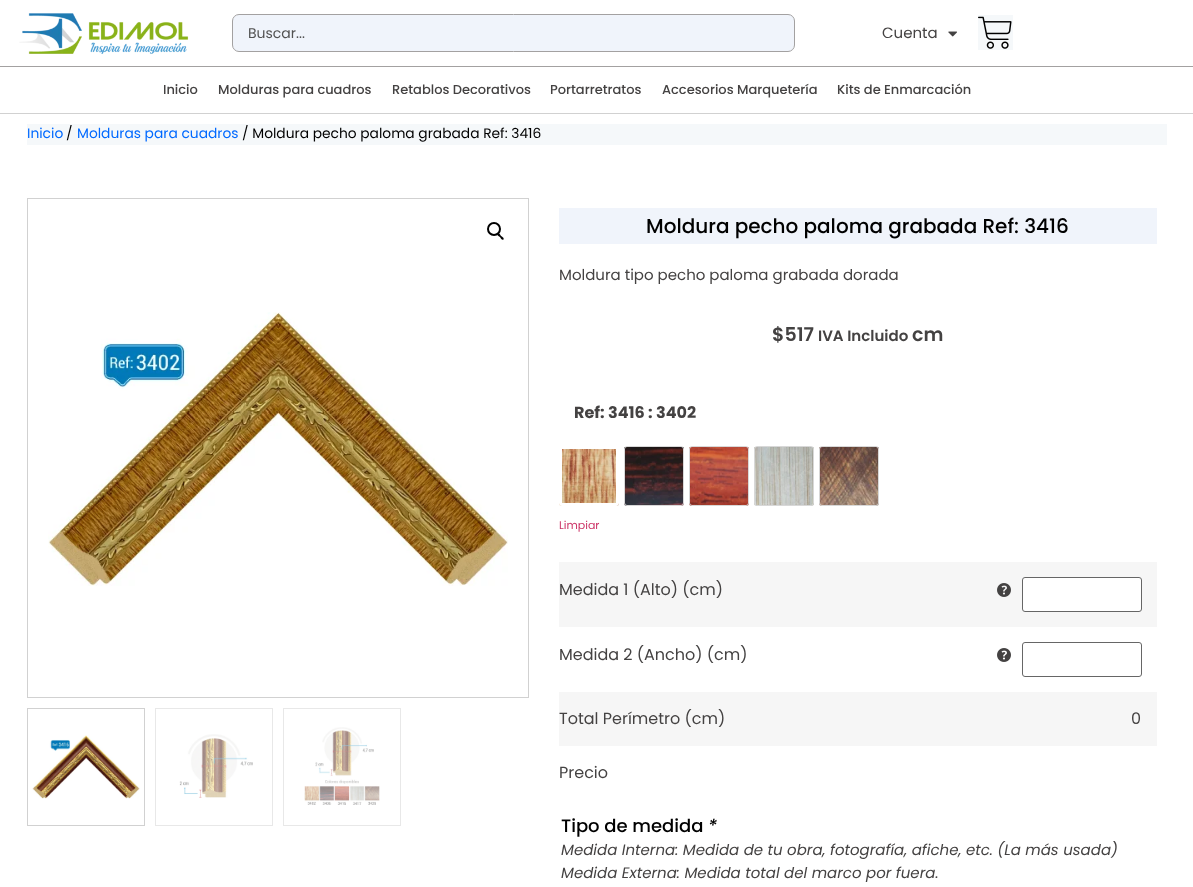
<!DOCTYPE html>
<meta charset="utf-8">
<style>body { margin: 0 } canvas { display: block }</style>
<canvas id="canvas" width="1193" height="887"></canvas>
<script type="module">
  const canvas = document.getElementById("canvas");
  const ctx = canvas.getContext("2d");
  ctx.miterLimit = 4;
  ctx.fontKerning = "normal";
  async function loadImage(src) {
    const img = new Image();
    img.src = src;
    await img.decode();
    return img;
  }

  ctx.fillStyle = "#ffffff";
  ctx.fillRect(0, 0, 1193, 887);
  ctx.fillStyle = "#a3a1a1";
  ctx.fillRect(0, 66, 1193, 1);
  ctx.drawImage(await loadImage("img1.png"), 19, 13, 170, 41);
  ctx.fillStyle = "#f0f4fb";
  ctx.beginPath();
  ctx.roundRect(232.5, 14.5, 562, 37, 6.5);
  ctx.fill();
  ctx.strokeStyle = "#a3a1a1";
  ctx.stroke();
  ctx.font = "14px Poppins";
  ctx.fillStyle = "#525252";
  ctx.fillText("Buscar...", 248, 38);
  ctx.font = "15px Poppins";
  ctx.fillStyle = "#444242";
  ctx.fillText("Cuenta", 882, 38);
  ctx.drawImage(await loadImage("img2.png"), 948, 31, 9, 6);
  ctx.fillStyle = "#f5f8fa";
  ctx.fillRect(978, 15, 35, 35);
  ctx.drawImage(await loadImage("img3.png"), 978, 16, 34, 33);
  ctx.fillStyle = "#d1d1d1";
  ctx.fillRect(0, 113, 1193, 1);
  ctx.font = "500 13px Poppins";
  ctx.fillStyle = "#444242";
  ctx.fillText("Inicio", 163, 94);
  ctx.fillText("Molduras para cuadros", 218, 94);
  ctx.fillText("Retablos Decorativos", 392, 94);
  ctx.fillText("Portarretratos", 550, 94);
  ctx.fillText("Accesorios Marquetería", 662, 94);
  ctx.fillText("Kits de Enmarcación", 837, 94);
  ctx.fillStyle = "#f5f8fa";
  ctx.fillRect(27, 124, 1140, 21);
  ctx.font = "13.8px Poppins";
  ctx.fillStyle = "#0069ff";
  ctx.fillText("Inicio", 27, 138);
  ctx.fillStyle = "#000000";
  ctx.fillText("/", 66, 138);
  ctx.fillStyle = "#0069ff";
  ctx.fillText("Molduras para cuadros", 77, 138);
  ctx.fillStyle = "#000000";
  ctx.fillText("/ Moldura pecho paloma grabada Ref: 3416", 242, 138);
  ctx.strokeStyle = "#d1d1d1";
  ctx.strokeRect(27.5, 198.5, 501, 499);
  ctx.drawImage(await loadImage("img4.png"), 48, 312, 460, 274);
  ctx.beginPath();
  ctx.arc(494, 229, 6, 0, Math.PI * 2);
  ctx.strokeStyle = "#000000";
  ctx.lineWidth = 2;
  ctx.stroke();
  ctx.beginPath();
  ctx.moveTo(497.5, 233.5);
  ctx.bezierCurveTo(499, 232.5, 500.5, 235, 501, 236);
  ctx.bezierCurveTo(502, 236.5, 504.5, 238, 503.5, 239.5);
  ctx.bezierCurveTo(502, 240.5, 500.5, 238, 500, 237);
  ctx.bezierCurveTo(499, 236.5, 496.5, 235, 497.5, 233.5);
  ctx.closePath();
  ctx.fill();
  ctx.strokeStyle = "#d1d1d1";
  ctx.lineWidth = 1;
  ctx.strokeRect(27.5, 708.5, 117, 117);
  ctx.drawImage(await loadImage("img5.png"), 32, 735, 108, 64);
  ctx.strokeStyle = "#e8e8e8";
  ctx.strokeRect(155.5, 708.5, 117, 117);
  ctx.drawImage(await loadImage("img6.png"), 179, 734, 74, 64);
  ctx.strokeRect(283.5, 708.5, 117, 117);
  ctx.drawImage(await loadImage("img7.png"), 304, 727, 76, 78);
  ctx.fillStyle = "#f0f4fb";
  ctx.fillRect(559, 208, 598, 36);
  ctx.font = "500 20px Poppins";
  ctx.fillStyle = "#000000";
  ctx.fillText("Moldura pecho paloma grabada Ref: 3416", 646, 233);
  ctx.font = "15px Poppins";
  ctx.fillStyle = "#444242";
  ctx.fillText("Moldura tipo pecho paloma grabada dorada", 559, 280);
  ctx.font = "600 19px Poppins";
  ctx.fillText("$517", 772, 341);
  ctx.font = "600 15px Poppins";
  ctx.fillText("IVA Incluido", 818, 341);
  ctx.font = "600 19px Poppins";
  ctx.fillText("cm", 912, 341);
  ctx.font = "bold 16px Poppins";
  ctx.fillText("Ref: 3416 : 3402", 574, 418);
  ctx.drawImage(await loadImage("img8.png"), 559, 446, 60, 60);
  ctx.beginPath();
  ctx.roundRect(560.5, 447.5, 57, 57, 1.5);
  ctx.strokeStyle = "#ffffff";
  ctx.lineWidth = 3;
  ctx.stroke();
  ctx.drawImage(await loadImage("img9.png"), 624, 447, 60, 59);
  ctx.beginPath();
  ctx.roundRect(624.5, 446.5, 59, 59, 2.5);
  ctx.strokeStyle = "#d8d8d8";
  ctx.lineWidth = 1;
  ctx.stroke();
  ctx.drawImage(await loadImage("img10.png"), 689, 447, 60, 59);
  ctx.beginPath();
  ctx.roundRect(689.5, 446.5, 59, 59, 2.5);
  ctx.stroke();
  ctx.drawImage(await loadImage("img11.png"), 754, 447, 60, 59);
  ctx.beginPath();
  ctx.roundRect(754.5, 446.5, 59, 59, 2.5);
  ctx.stroke();
  ctx.drawImage(await loadImage("img12.png"), 819, 447, 60, 59);
  ctx.beginPath();
  ctx.roundRect(819.5, 446.5, 59, 59, 2.5);
  ctx.stroke();
  ctx.font = "11px Poppins";
  ctx.fillStyle = "#cc3366";
  ctx.fillText("Limpiar", 559, 529);
  ctx.fillStyle = "#f6f6f6";
  ctx.fillRect(559, 562, 598, 65);
  ctx.font = "16px Poppins";
  ctx.fillStyle = "#444242";
  ctx.fillText("Medida 1 (Alto) (cm)", 559, 595);
  ctx.drawImage(await loadImage("img13.png"), 997, 583, 14, 14);
  ctx.fillStyle = "#ffffff";
  ctx.beginPath();
  ctx.roundRect(1022.5, 577.5, 119, 34, 2.5);
  ctx.fill();
  ctx.strokeStyle = "#666666";
  ctx.stroke();
  ctx.fillStyle = "#444242";
  ctx.fillText("Medida 2 (Ancho) (cm)", 559, 660);
  ctx.drawImage(await loadImage("img14.png"), 997, 648, 14, 14);
  ctx.beginPath();
  ctx.roundRect(1022.5, 642.5, 119, 34, 2.5);
  ctx.stroke();
  ctx.fillStyle = "#f6f6f6";
  ctx.fillRect(559, 692, 598, 54);
  ctx.fillStyle = "#444242";
  ctx.fillText("Total Perímetro (cm)", 559, 724);
  ctx.fillText("0", 1131, 724);
  ctx.fillText("Precio", 559, 778);
  ctx.font = "500 18px Poppins";
  ctx.fillStyle = "#000000";
  ctx.fillText("Tipo de medida", 561, 832);
  ctx.font = "italic 500 18px Poppins";
  ctx.fillText("*", 708, 832);
  ctx.font = "italic 15px Poppins";
  ctx.fillStyle = "#444242";
  ctx.fillText("Medida Interna: Medida de tu obra, fotografía, afiche, etc. (La más usada)", 561, 855);
  ctx.fillText("Medida Externa: Medida total del marco por fuera.", 561, 878);
</script>
